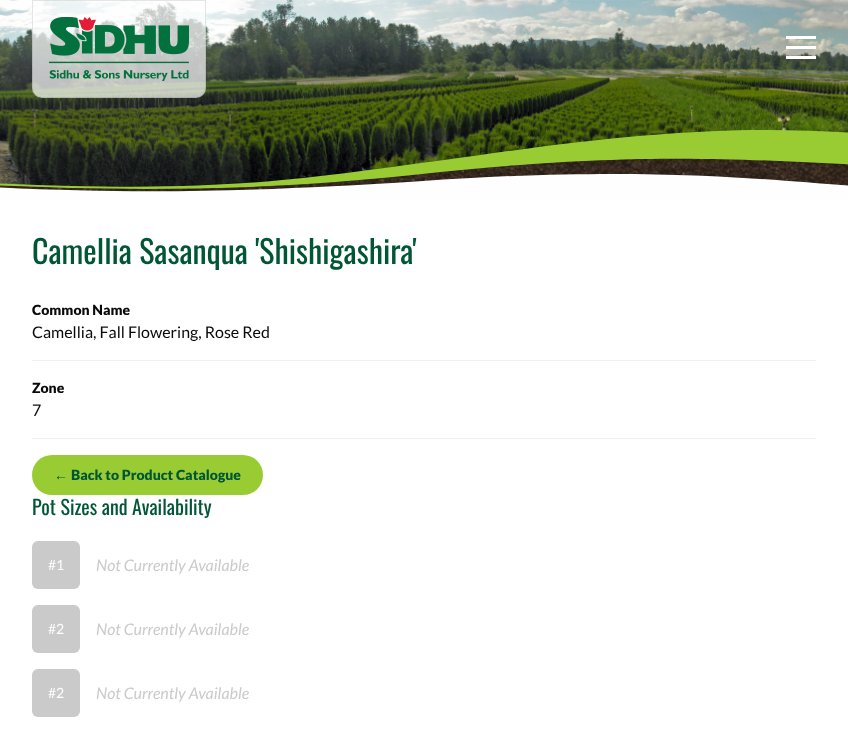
<!DOCTYPE html>
<meta charset="utf-8">
<style>body { margin: 0 } canvas { display: block }</style>
<canvas id="canvas" width="848" height="732"></canvas>
<script type="module">
  const canvas = document.getElementById("canvas");
  const ctx = canvas.getContext("2d");
  ctx.miterLimit = 4;
  ctx.fontKerning = "normal";
  async function loadImage(src) {
    const img = new Image();
    img.src = src;
    await img.decode();
    return img;
  }

  ctx.fillStyle = "#ffffff";
  ctx.fillRect(0, 0, 848, 732);
  ctx.drawImage(await loadImage("img2.png"), 0, 0, 848, 189);
  ctx.fillStyle = "rgba(254, 254, 254, 0.7)";
  ctx.beginPath();
  ctx.roundRect(32, 0, 174, 98, [0, 0, 10, 10]);
  ctx.fill();
  ctx.beginPath();
  ctx.roundRect(32.5, 0.5, 173, 97, [0, 0, 9.5, 9.5]);
  ctx.strokeStyle = "rgba(10, 10, 10, 0.1)";
  ctx.stroke();
  ctx.drawImage(await loadImage("img1.png"), 49, 17, 140, 64);
  ctx.fillStyle = "#fefefe";
  ctx.fillRect(786, 36, 30, 3);
  ctx.fillRect(786, 46, 30, 3);
  ctx.fillRect(786, 56, 30, 3);
  ctx.drawImage(await loadImage("img3.png"), 0, 130, 848, 70);
  ctx.font = "32px Oswald";
  ctx.fillStyle = "#015635";
  ctx.fillText("Camellia Sasanqua 'Shishigashira'", 32, 264);
  ctx.fillStyle = "#f1f1f1";
  ctx.fillRect(32, 360, 784, 1);
  ctx.font = "900 14px Lato";
  ctx.fillStyle = "#0a0a0a";
  ctx.fillText("Common Name", 32, 315);
  ctx.font = "16px Lato";
  ctx.fillText("Camellia, Fall Flowering, Rose Red", 32, 338);
  ctx.fillStyle = "#f1f1f1";
  ctx.fillRect(32, 438, 784, 1);
  ctx.font = "900 14px Lato";
  ctx.fillStyle = "#0a0a0a";
  ctx.fillText("Zone", 32, 393);
  ctx.font = "16px Lato";
  ctx.fillText("7", 32, 416);
  ctx.fillStyle = "#99cc33";
  ctx.beginPath();
  ctx.roundRect(32, 455, 231, 40, 20);
  ctx.fill();
  ctx.font = "bold 14px Liberation Sans";
  ctx.fillStyle = "#015635";
  ctx.fillText("←", 54, 480);
  ctx.font = "900 14px Lato";
  ctx.fillText("Back to Product Catalogue", 71, 480);
  ctx.font = "20px Oswald";
  ctx.fillText("Pot Sizes and Availability", 32, 515);
  ctx.fillStyle = "#cacaca";
  ctx.beginPath();
  ctx.roundRect(32, 541, 48, 48, 6);
  ctx.fill();
  ctx.font = "14px Lato";
  ctx.fillStyle = "#fefefe";
  ctx.fillText("#1", 48, 570);
  ctx.font = "italic 16px Lato";
  ctx.fillStyle = "#cacaca";
  ctx.fillText("Not Currently Available", 96, 571);
  ctx.beginPath();
  ctx.roundRect(32, 605, 48, 48, 6);
  ctx.fill();
  ctx.font = "14px Lato";
  ctx.fillStyle = "#fefefe";
  ctx.fillText("#2", 48, 634);
  ctx.font = "italic 16px Lato";
  ctx.fillStyle = "#cacaca";
  ctx.fillText("Not Currently Available", 96, 635);
  ctx.beginPath();
  ctx.roundRect(32, 669, 48, 48, 6);
  ctx.fill();
  ctx.font = "14px Lato";
  ctx.fillStyle = "#fefefe";
  ctx.fillText("#2", 48, 698);
  ctx.font = "italic 16px Lato";
  ctx.fillStyle = "#cacaca";
  ctx.fillText("Not Currently Available", 96, 699);
</script>
